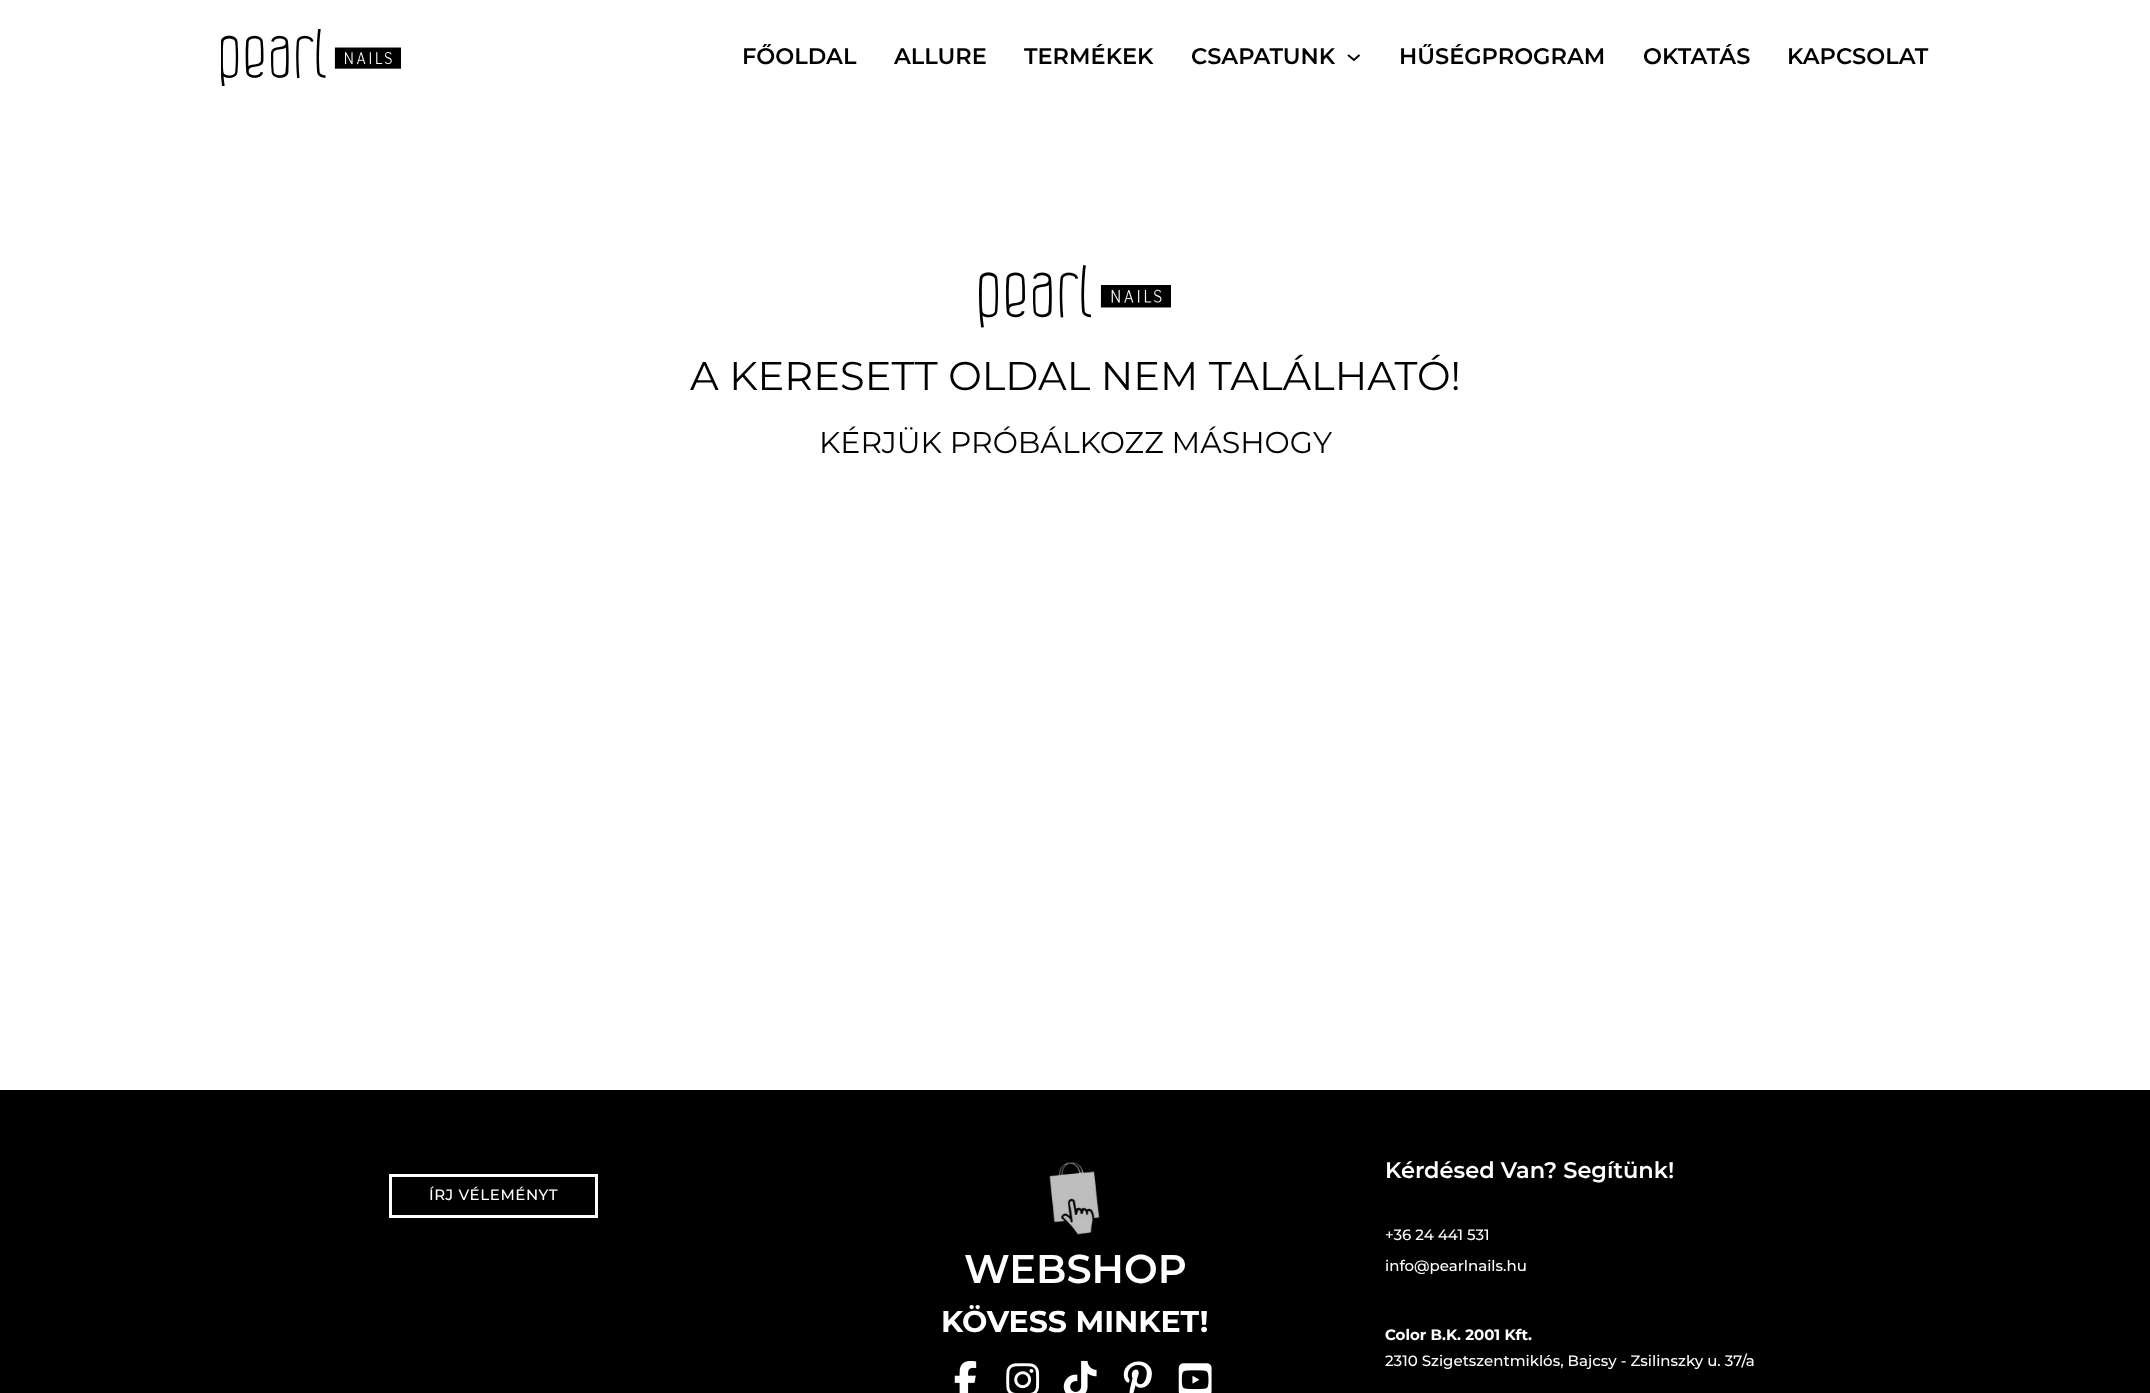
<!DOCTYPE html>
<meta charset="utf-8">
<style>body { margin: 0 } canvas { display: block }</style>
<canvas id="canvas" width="2150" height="1393"></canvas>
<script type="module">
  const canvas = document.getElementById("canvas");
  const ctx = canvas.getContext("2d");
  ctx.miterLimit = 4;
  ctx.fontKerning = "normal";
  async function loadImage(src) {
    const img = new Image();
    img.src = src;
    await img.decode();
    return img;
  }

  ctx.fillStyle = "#ffffff";
  ctx.fillRect(0, 0, 2150, 1393);
  ctx.drawImage(await loadImage("img1.png"), 221, 29, 180, 57);
  ctx.font = "600 22.5px Montserrat";
  ctx.fillStyle = "#000000";
  ctx.fillText("FŐOLDAL", 742, 64);
  ctx.fillText("ALLURE", 894, 64);
  ctx.fillText("TERMÉKEK", 1024, 64);
  ctx.fillText("CSAPATUNK", 1191, 64);
  ctx.beginPath();
  ctx.moveTo(1348, 55);
  ctx.lineTo(1354, 60);
  ctx.lineTo(1359.5, 55);
  ctx.strokeStyle = "#000000";
  ctx.lineWidth = 1.9;
  ctx.stroke();
  ctx.fillText("HŰSÉGPROGRAM", 1399, 64);
  ctx.fillText("OKTATÁS", 1643, 64);
  ctx.fillText("KAPCSOLAT", 1787, 64);
  ctx.drawImage(await loadImage("img2.png"), 979, 265, 192, 63);
  ctx.font = "40px Montserrat";
  ctx.fillText("A KERESETT OLDAL NEM TALÁLHATÓ!", 690, 390);
  ctx.font = "30px Montserrat";
  ctx.fillText("KÉRJÜK PRÓBÁLKOZZ MÁSHOGY", 819, 453);
  ctx.fillRect(0, 1090, 2150, 303);
  ctx.strokeStyle = "#ffffff";
  ctx.lineWidth = 3;
  ctx.strokeRect(390.5, 1175.5, 206, 41);
  ctx.letterSpacing = "0.6px";
  ctx.font = "500 15px Montserrat";
  ctx.fillStyle = "#ffffff";
  ctx.fillText("ÍRJ VÉLEMÉNYT", 429, 1200);
  ctx.letterSpacing = "0px";
  ctx.font = "600 22.5px Montserrat";
  ctx.fillText("Kérdésed Van? Segítünk!", 1385, 1178);
  ctx.font = "500 15px Montserrat";
  ctx.fillText("+36 24 441 531", 1385, 1240);
  ctx.fillText("info@pearlnails.hu", 1385, 1271);
  ctx.font = "bold 15px Montserrat";
  ctx.fillText("Color B.K. 2001 Kft.", 1385, 1340);
  ctx.font = "500 15px Montserrat";
  ctx.fillText("2310 Szigetszentmiklós, Bajcsy - Zsilinszky u. 37/a", 1385, 1366);
  ctx.drawImage(await loadImage("img3.png"), 1049, 1162, 51, 73);
  ctx.font = "600 40px Montserrat";
  ctx.fillText("WEBSHOP", 964, 1283);
  ctx.font = "bold 30px Montserrat";
  ctx.fillText("KÖVESS MINKET!", 941, 1332);
  ctx.drawImage(await loadImage("img4.png"), 954, 1360, 23, 33);
  ctx.drawImage(await loadImage("img5.png"), 1006, 1363, 34, 30);
  ctx.drawImage(await loadImage("img6.png"), 1063, 1360, 34, 33);
  ctx.drawImage(await loadImage("img7.png"), 1123, 1361, 29, 32);
  ctx.drawImage(await loadImage("img8.png"), 1178, 1363, 34, 30);
</script>
